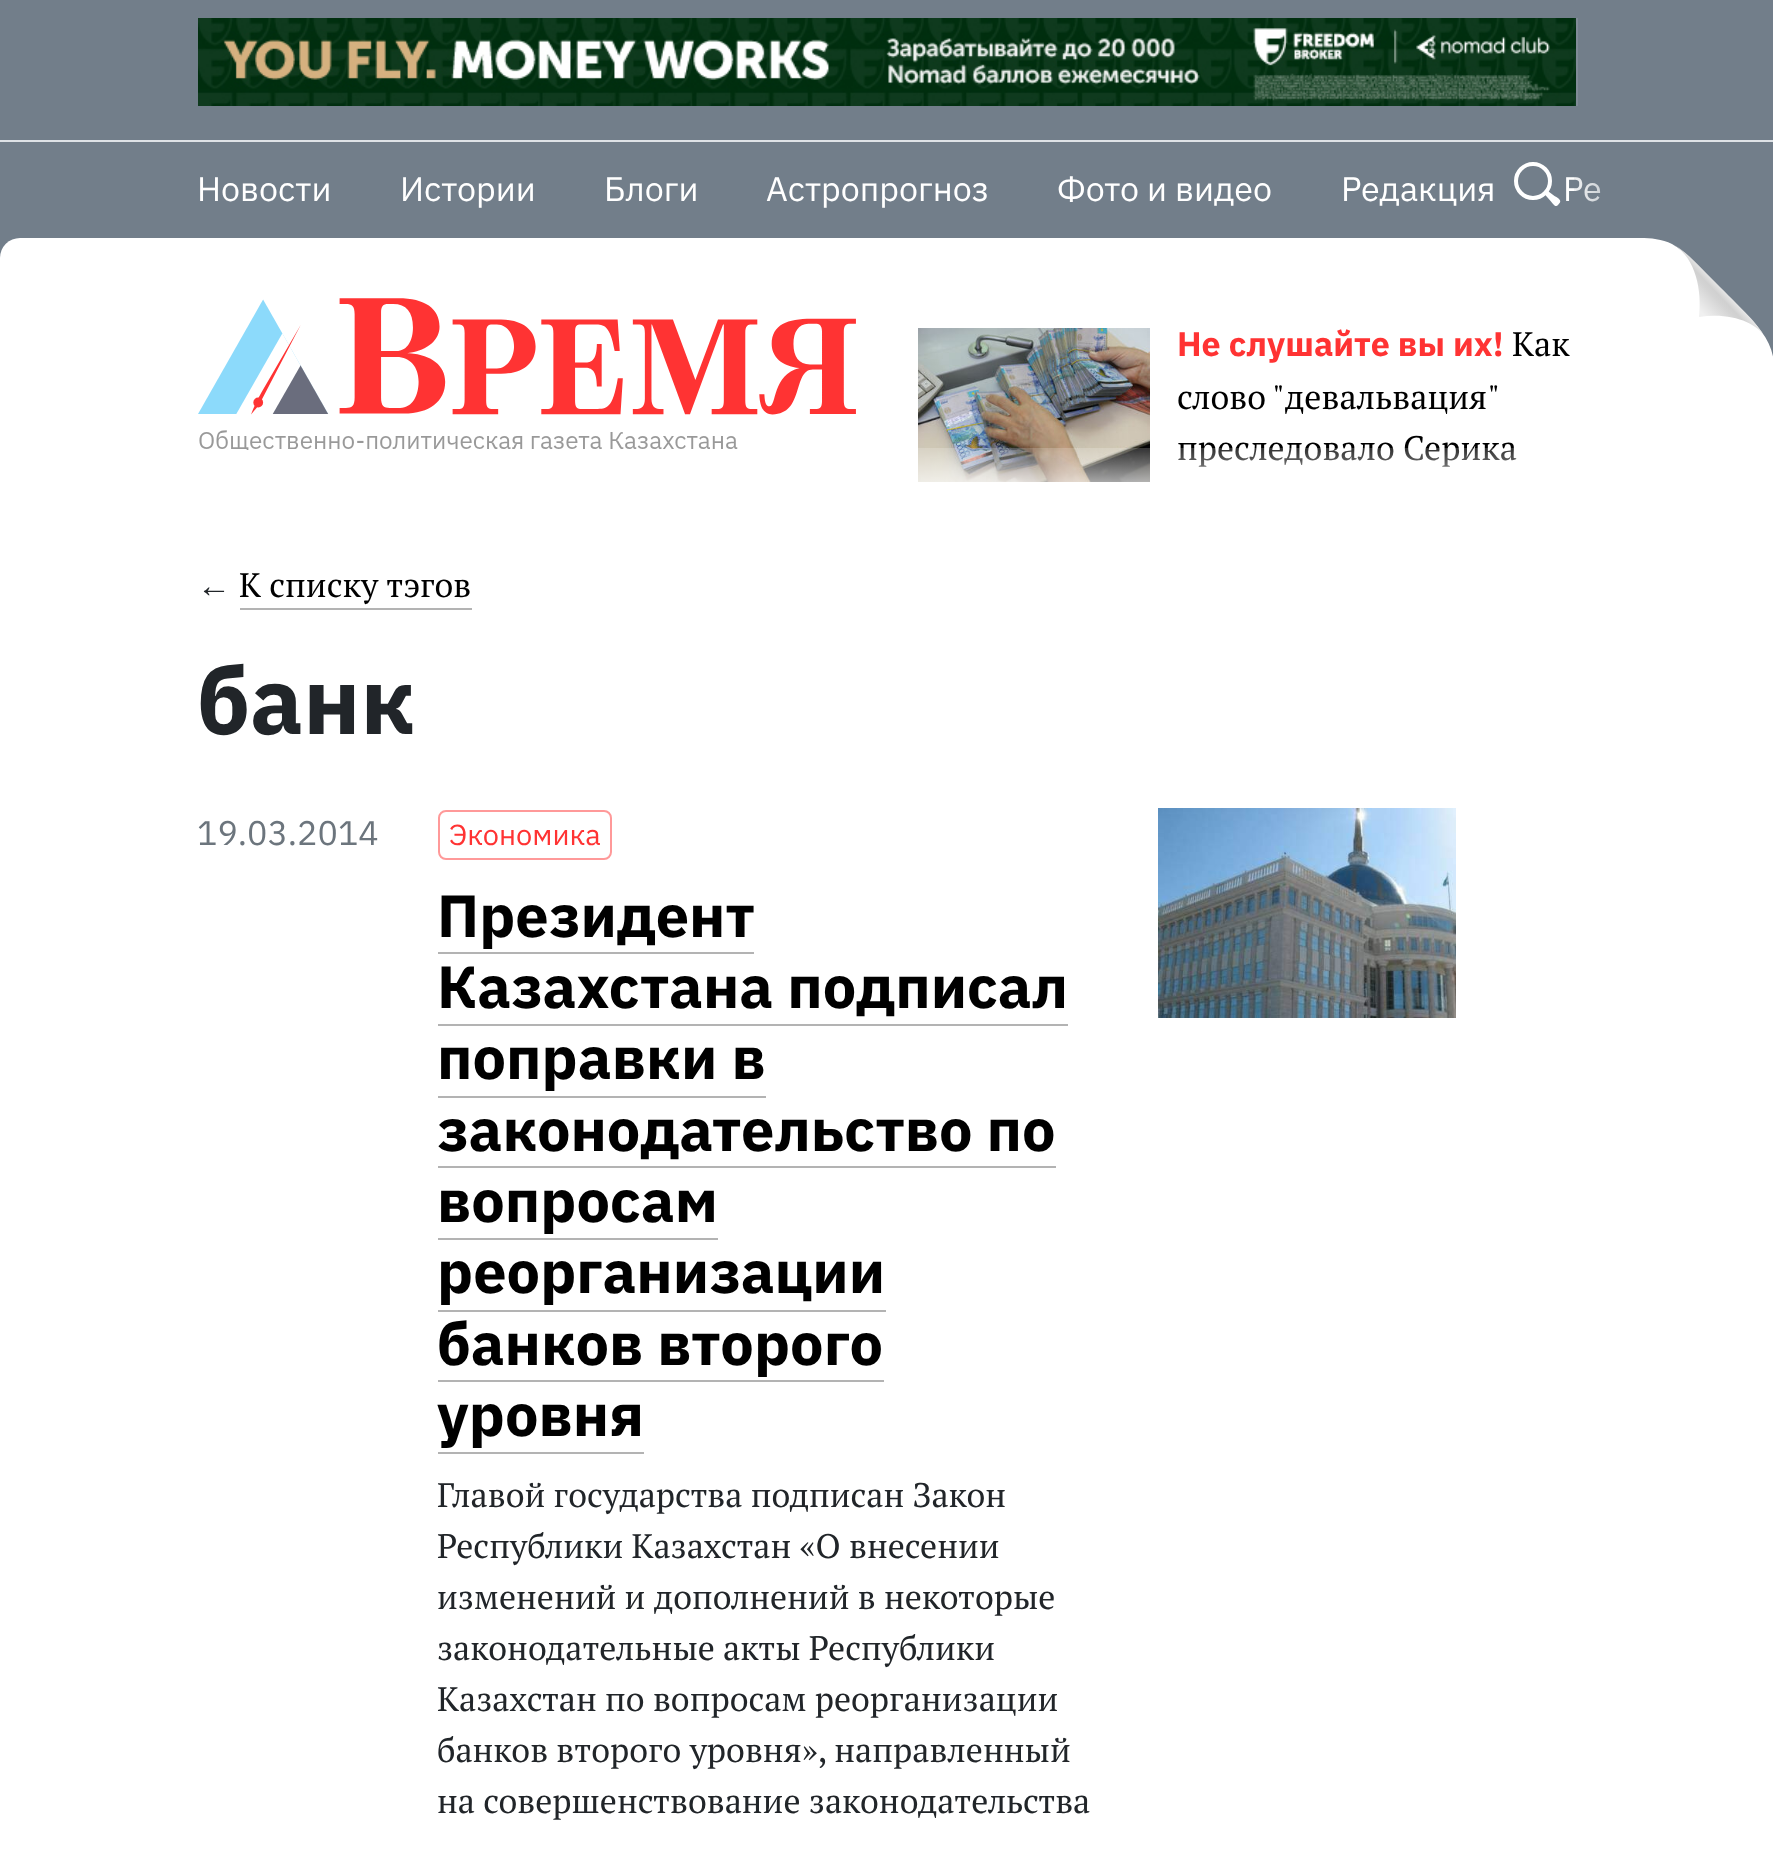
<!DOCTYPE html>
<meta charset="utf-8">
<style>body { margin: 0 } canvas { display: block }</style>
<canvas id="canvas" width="1773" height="1857"></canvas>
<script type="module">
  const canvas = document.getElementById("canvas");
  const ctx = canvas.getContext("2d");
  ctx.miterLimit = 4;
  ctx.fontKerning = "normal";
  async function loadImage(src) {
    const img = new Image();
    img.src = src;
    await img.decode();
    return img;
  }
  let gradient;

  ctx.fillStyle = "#727e8a";
  ctx.fillRect(0, 0, 1773, 1857);
  ctx.fillStyle = "#808b97";
  ctx.fillRect(1576, 18, 2, 88);
  ctx.drawImage(await loadImage("img1.png"), 198, 18, 1378, 88);
  ctx.fillStyle = "#dee2e6";
  ctx.fillRect(0, 140, 1773, 2);
  ctx.beginPath();
  ctx.arc(1533, 181, 17, 0, Math.PI * 2);
  ctx.strokeStyle = "#ffffff";
  ctx.lineWidth = 4;
  ctx.stroke();
  ctx.fillStyle = "#ffffff";
  ctx.beginPath();
  ctx.moveTo(1544, 193.5);
  ctx.lineTo(1546.5, 190);
  ctx.lineTo(1554.5, 196);
  ctx.bezierCurveTo(1556.5, 197, 1561.5, 199.5, 1560, 202.5);
  ctx.lineTo(1558, 205);
  ctx.bezierCurveTo(1555.5, 208.5, 1552, 202.5, 1551, 201.5);
  ctx.closePath();
  ctx.fill("evenodd");
  ctx.font = "34px IBM Plex Sans";
  ctx.fillText("Новости", 197, 201);
  ctx.fillText("Истории", 400, 201);
  ctx.fillText("Блоги", 604, 201);
  ctx.fillText("Астропрогноз", 766, 201);
  ctx.fillText("Фото и видео", 1057, 201);
  ctx.fillText("Редакция", 1341, 201);
  ctx.fillText("Ре", 1563, 201);
  gradient = ctx.createLinearGradient(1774, 190, 1574, 190);
  gradient.addColorStop(0.5, "#727e8a");
  gradient.addColorStop(1, "rgba(114, 126, 138, 0.1)");
  ctx.fillStyle = gradient;
  ctx.fillRect(1574, 177, 27, 25);
  ctx.fillStyle = "#ffffff";
  ctx.beginPath();
  ctx.roundRect(0, 238, 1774, 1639, 20);
  ctx.fill();
  ctx.fillStyle = "#727e8a";
  ctx.fillRect(1641, 238, 132, 119);
  ctx.save();
  ctx.beginPath();
  ctx.rect(1624, 238, 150, 150);
  ctx.clip();
  ctx.fillStyle = "#ffffff";
  ctx.beginPath();
  ctx.moveTo(1640, 238);
  ctx.bezierCurveTo(1651, 238, 1662, 239, 1672, 244);
  ctx.bezierCurveTo(1679, 248, 1685, 253, 1691, 259);
  ctx.lineTo(1743, 311);
  ctx.bezierCurveTo(1759, 327, 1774, 343, 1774, 367);
  ctx.lineTo(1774, 321);
  ctx.lineTo(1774, 392);
  ctx.lineTo(1618, 392);
  ctx.lineTo(1618, 238);
  ctx.closePath();
  ctx.fill("evenodd");
  ctx.restore();
  gradient = ctx.createLinearGradient(1725, 291, 1702, 313);
  gradient.addColorStop(0, "#e8e8e8");
  gradient.addColorStop(0.23, "#d0d0d0");
  gradient.addColorStop(0.36, "#d3d3d3");
  gradient.addColorStop(1, "#f0f0f0");
  ctx.fillStyle = gradient;
  ctx.beginPath();
  ctx.moveTo(1674, 245);
  ctx.bezierCurveTo(1696, 259, 1702, 290, 1699, 317);
  ctx.bezierCurveTo(1731, 312, 1757, 323, 1765, 337);
  ctx.bezierCurveTo(1757, 323, 1744, 311, 1720, 287);
  ctx.bezierCurveTo(1701, 268, 1687, 252, 1674, 245);
  ctx.closePath();
  ctx.fill();
  ctx.drawImage(await loadImage("img2.png"), 198, 298, 658, 152);
  ctx.drawImage(await loadImage("img3.png"), 918, 328, 232, 154);
  ctx.font = "bold 34px IBM Plex Sans";
  ctx.fillStyle = "#ff3333";
  ctx.fillText("Не слушайте вы их!", 1177, 356);
  ctx.font = "34px PT Serif";
  ctx.fillStyle = "#000000";
  ctx.fillText("Как", 1512, 356);
  ctx.wordSpacing = "-1px";
  ctx.fillText("слово \"девальвация\"", 1177, 409);
  ctx.wordSpacing = "0px";
  ctx.fillText("преследовало Серика", 1177, 460);
  gradient = ctx.createLinearGradient(1248, 508, 1248, 448);
  gradient.addColorStop(0, "#ffffff");
  gradient.addColorStop(0.98, "rgba(255, 255, 255, 0.2)");
  ctx.fillStyle = gradient;
  ctx.fillRect(918, 448, 598, 34);
  ctx.font = "34px Liberation Serif";
  ctx.fillStyle = "#212529";
  ctx.fillText("←", 197, 597);
  ctx.font = "34px PT Serif";
  ctx.fillStyle = "#000000";
  ctx.fillText("К списку тэгов", 239, 597);
  ctx.fillStyle = "#b3b3b3";
  ctx.fillRect(240, 608, 232, 2);
  ctx.font = "bold 93.5px IBM Plex Sans";
  ctx.fillStyle = "#212529";
  ctx.fillText("банк", 197, 734);
  ctx.font = "34px IBM Plex Sans";
  ctx.fillStyle = "#6c757d";
  ctx.fillText("19.03.2014", 197, 845);
  ctx.beginPath();
  ctx.roundRect(439, 811, 172, 48, 7);
  ctx.strokeStyle = "#ff9999";
  ctx.lineWidth = 2;
  ctx.stroke();
  ctx.font = "29px IBM Plex Sans";
  ctx.fillStyle = "#ff3333";
  ctx.fillText("Экономика", 449, 845);
  ctx.font = "bold 59.5px IBM Plex Sans";
  ctx.fillStyle = "#000000";
  ctx.fillText("Президент", 437, 937);
  ctx.fillStyle = "#b3b3b3";
  ctx.fillRect(438, 952, 316, 2);
  ctx.fillStyle = "#000000";
  ctx.fillText("Казахстана подписал", 437, 1008);
  ctx.fillStyle = "#b3b3b3";
  ctx.fillRect(438, 1024, 630, 2);
  ctx.fillStyle = "#000000";
  ctx.fillText("поправки в", 437, 1079);
  ctx.fillStyle = "#b3b3b3";
  ctx.fillRect(438, 1096, 328, 2);
  ctx.fillStyle = "#000000";
  ctx.fillText("законодательство по", 437, 1151);
  ctx.fillStyle = "#b3b3b3";
  ctx.fillRect(438, 1166, 618, 2);
  ctx.fillStyle = "#000000";
  ctx.fillText("вопросам", 437, 1222);
  ctx.fillStyle = "#b3b3b3";
  ctx.fillRect(438, 1238, 280, 2);
  ctx.fillStyle = "#000000";
  ctx.fillText("реорганизации", 437, 1293);
  ctx.fillStyle = "#b3b3b3";
  ctx.fillRect(438, 1310, 448, 2);
  ctx.fillStyle = "#000000";
  ctx.fillText("банков второго", 437, 1365);
  ctx.fillStyle = "#b3b3b3";
  ctx.fillRect(438, 1380, 446, 2);
  ctx.fillStyle = "#000000";
  ctx.fillText("уровня", 437, 1436);
  ctx.fillStyle = "#b3b3b3";
  ctx.fillRect(438, 1452, 206, 2);
  ctx.font = "34px PT Serif";
  ctx.fillStyle = "#212529";
  ctx.fillText("Главой государства подписан Закон", 437, 1507);
  ctx.fillText("Республики Казахстан «О внесении", 437, 1558);
  ctx.fillText("изменений и дополнений в некоторые", 437, 1609);
  ctx.fillText("законодательные акты Республики", 437, 1660);
  ctx.fillText("Казахстан по вопросам реорганизации", 437, 1711);
  ctx.fillText("банков второго уровня», направленный", 437, 1762);
  ctx.fillText("на совершенствование законодательства", 437, 1813);
  ctx.drawImage(await loadImage("img4.png"), 1158, 808, 298, 210);
</script>
